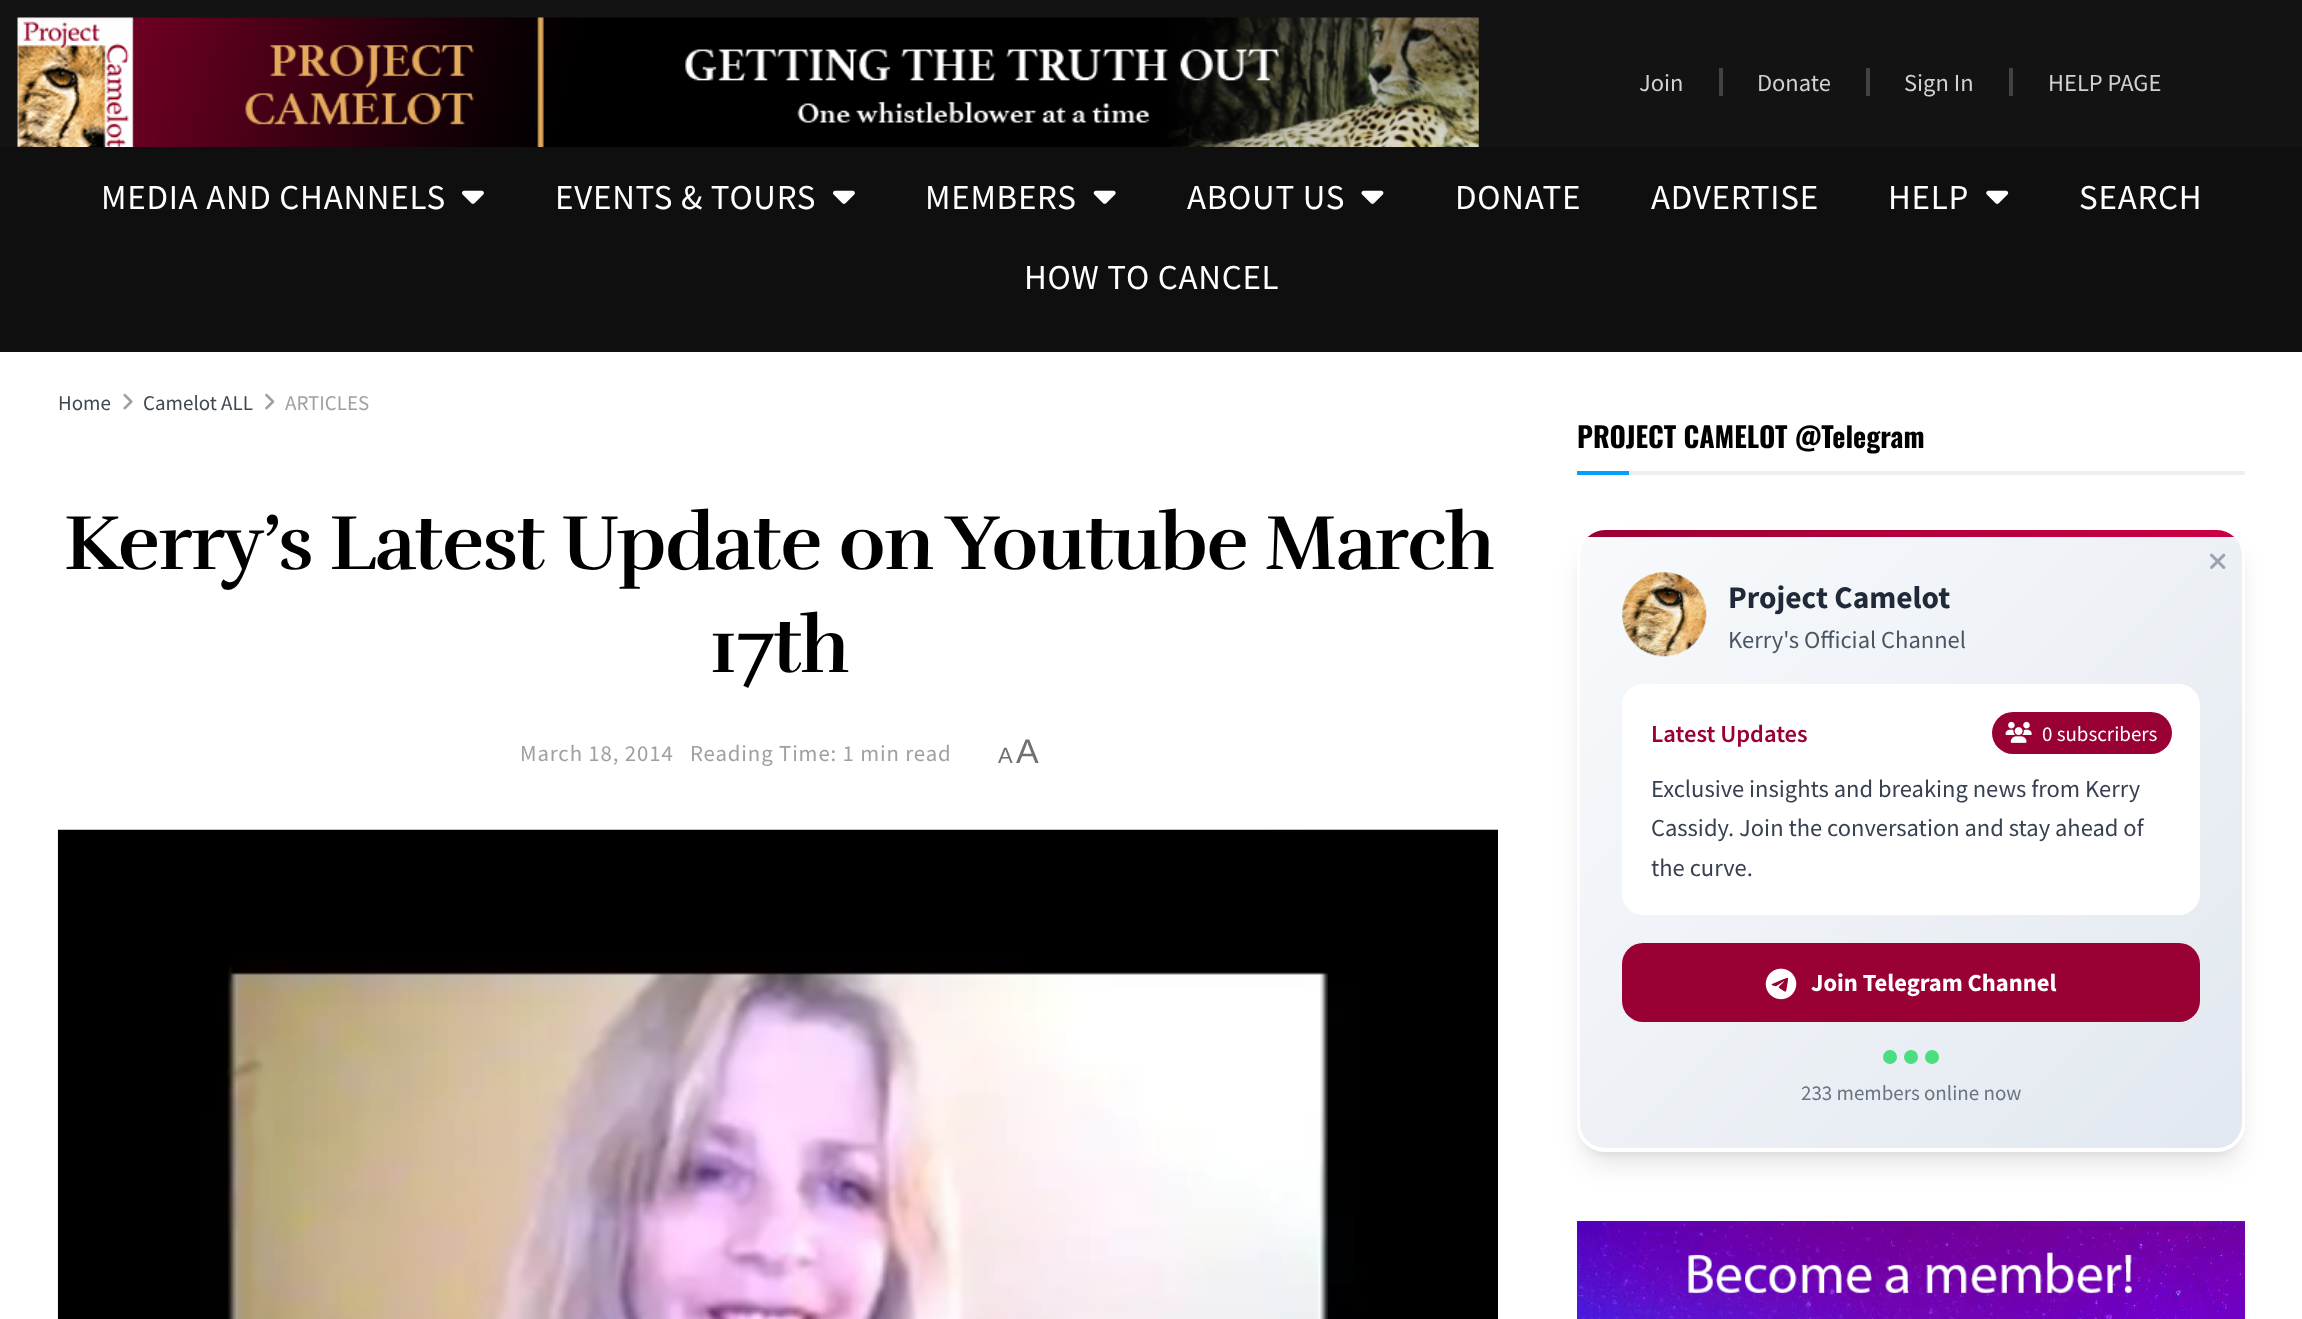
<!DOCTYPE html>
<meta charset="utf-8">
<style>body { margin: 0 } canvas { display: block }</style>
<canvas id="canvas" width="2302" height="1319"></canvas>
<script type="module">
  const canvas = document.getElementById("canvas");
  const ctx = canvas.getContext("2d");
  ctx.miterLimit = 4;
  ctx.fontKerning = "normal";
  async function loadImage(src) {
    const img = new Image();
    img.src = src;
    await img.decode();
    return img;
  }
  let gradient;

  ctx.fillStyle = "#ffffff";
  ctx.fillRect(0, 0, 2302, 1319);
  ctx.fillStyle = "#131313";
  ctx.fillRect(0, 0, 2302, 147);
  ctx.drawImage(await loadImage("img1.png"), 17, 17, 1462, 130);
  ctx.font = "24.5px Source Sans Pro";
  ctx.fillStyle = "#d1d1d1";
  ctx.fillText("Join", 1639, 91);
  ctx.fillStyle = "#424242";
  ctx.fillRect(1719, 68, 4, 28);
  ctx.fillStyle = "#d1d1d1";
  ctx.fillText("Donate", 1757, 91);
  ctx.fillStyle = "#424242";
  ctx.fillRect(1866, 68, 4, 28);
  ctx.fillStyle = "#d1d1d1";
  ctx.fillText("Sign In", 1904, 91);
  ctx.fillStyle = "#424242";
  ctx.fillRect(2009, 68, 4, 28);
  ctx.fillStyle = "#d1d1d1";
  ctx.fillText("HELP PAGE", 2048, 91);
  ctx.fillStyle = "#0f0f0f";
  ctx.fillRect(0, 147, 2302, 205);
  ctx.letterSpacing = "0.75px";
  ctx.font = "35px Source Sans Pro";
  ctx.fillStyle = "#ffffff";
  ctx.fillText("MEDIA AND CHANNELS", 101, 209);
  ctx.drawImage(await loadImage("img2.png"), 462, 190, 22, 14);
  ctx.fillText("EVENTS & TOURS", 555, 209);
  ctx.drawImage(await loadImage("img2.png"), 833, 190, 22, 14);
  ctx.fillText("MEMBERS", 925, 209);
  ctx.drawImage(await loadImage("img3.png"), 1093, 190, 23, 14);
  ctx.fillText("ABOUT US", 1187, 209);
  ctx.drawImage(await loadImage("img4.png"), 1361, 190, 23, 14);
  ctx.fillText("DONATE", 1455, 209);
  ctx.fillText("ADVERTISE", 1651, 209);
  ctx.fillText("HELP", 1888, 209);
  ctx.drawImage(await loadImage("img5.png"), 1986, 190, 23, 14);
  ctx.fillText("SEARCH", 2079, 209);
  ctx.fillText("HOW TO CANCEL", 1024, 289);
  ctx.letterSpacing = "0px";
  ctx.font = "21px Source Sans Pro";
  ctx.fillStyle = "#3f4850";
  ctx.fillText("Home", 58, 410);
  ctx.drawImage(await loadImage("img6.png"), 123, 393, 10, 17);
  ctx.fillText("Camelot ALL", 143, 410);
  ctx.drawImage(await loadImage("img7.png"), 265, 393, 10, 17);
  ctx.fillStyle = "#a0a0a0";
  ctx.fillText("ARTICLES", 285, 410);
  ctx.letterSpacing = "-1.55px";
  ctx.font = "bold 78.75px Rufina";
  ctx.fillStyle = "#000000";
  ctx.fillText("Kerry’s Latest Update on Youtube March", 64, 569);
  ctx.fillText("17th", 709, 672);
  ctx.letterSpacing = "0.9px";
  ctx.font = "22.75px Source Sans Pro";
  ctx.fillStyle = "#a0a0a0";
  ctx.fillText("March 18, 2014", 520, 761);
  ctx.fillText("Reading Time: 1 min read", 690, 761);
  ctx.font = "22px Liberation Sans";
  ctx.fillStyle = "#707070";
  ctx.fillText("A", 998, 763);
  ctx.font = "34px Liberation Sans";
  ctx.fillText("A", 1016, 763);
  ctx.drawImage(await loadImage("img9.png"), 1269, 829, 229, 1);
  ctx.drawImage(await loadImage("img8.png"), 57, 829, 1441, 490);
  ctx.fillStyle = "#eeeeee";
  ctx.fillRect(1629, 471, 616, 4);
  ctx.letterSpacing = "0px";
  ctx.font = "bold 28px Oswald";
  ctx.fillStyle = "#000000";
  ctx.fillText("PROJECT CAMELOT @Telegram", 1577, 448);
  ctx.fillStyle = "#00a1ff";
  ctx.fillRect(1577, 471, 52, 4);
  ctx.save();
  ctx.beginPath();
  ctx.moveTo(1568, 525);
  ctx.lineTo(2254, 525);
  ctx.lineTo(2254, 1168);
  ctx.lineTo(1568, 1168);
  ctx.closePath();
  ctx.moveTo(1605, 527);
  ctx.lineTo(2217, 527);
  ctx.bezierCurveTo(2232.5, 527, 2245, 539.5, 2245, 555);
  ctx.lineTo(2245, 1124);
  ctx.bezierCurveTo(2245, 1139.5, 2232.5, 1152, 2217, 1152);
  ctx.lineTo(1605, 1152);
  ctx.bezierCurveTo(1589.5, 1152, 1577, 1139.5, 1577, 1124);
  ctx.lineTo(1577, 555);
  ctx.bezierCurveTo(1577, 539.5, 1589.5, 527, 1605, 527);
  ctx.closePath();
  ctx.clip("evenodd");
  ctx.fillStyle = "rgba(0, 0, 0, 0.1)";
  ctx.filter = "blur(5px)";
  ctx.beginPath();
  ctx.roundRect(1584, 541, 654, 611, 21);
  ctx.fill();
  ctx.filter = "none";
  ctx.restore();
  ctx.save();
  ctx.beginPath();
  ctx.moveTo(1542, 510);
  ctx.lineTo(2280, 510);
  ctx.lineTo(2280, 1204);
  ctx.lineTo(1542, 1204);
  ctx.closePath();
  ctx.moveTo(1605, 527);
  ctx.lineTo(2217, 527);
  ctx.bezierCurveTo(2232.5, 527, 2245, 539.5, 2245, 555);
  ctx.lineTo(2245, 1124);
  ctx.bezierCurveTo(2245, 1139.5, 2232.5, 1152, 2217, 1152);
  ctx.lineTo(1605, 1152);
  ctx.bezierCurveTo(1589.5, 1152, 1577, 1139.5, 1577, 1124);
  ctx.lineTo(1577, 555);
  ctx.bezierCurveTo(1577, 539.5, 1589.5, 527, 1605, 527);
  ctx.closePath();
  ctx.clip("evenodd");
  ctx.fillStyle = "rgba(0, 0, 0, 0.1)";
  ctx.filter = "blur(13px)";
  ctx.beginPath();
  ctx.roundRect(1582, 550, 658, 614, 23);
  ctx.fill();
  ctx.filter = "none";
  ctx.restore();
  gradient = ctx.createLinearGradient(1591, 519, 2231, 1159);
  gradient.addColorStop(0, "#f8fafc");
  gradient.addColorStop(1, "#e2e8f0");
  ctx.fillStyle = gradient;
  ctx.beginPath();
  ctx.roundRect(1580, 530, 662, 618, 25);
  ctx.fill();
  ctx.save();
  ctx.beginPath();
  ctx.roundRect(1580, 530, 662, 618, 25);
  ctx.clip();
  gradient = ctx.createLinearGradient(1580, 534, 2242, 534);
  gradient.addColorStop(0, "#990033");
  gradient.addColorStop(1, "#cc0044");
  ctx.fillStyle = gradient;
  ctx.fillRect(1580, 530, 662, 7);
  ctx.restore();
  ctx.drawImage(await loadImage("img10.png"), 2210, 553, 16, 16);
  ctx.drawImage(await loadImage("img11.png"), 1622, 572, 85, 85);
  ctx.font = "bold 31.5px Source Sans Pro";
  ctx.fillStyle = "#1f2937";
  ctx.fillText("Project Camelot", 1728, 608);
  ctx.font = "24.5px Source Sans Pro";
  ctx.fillStyle = "#4b5563";
  ctx.fillText("Kerry's Official Channel", 1728, 648);
  ctx.fillStyle = "#ffffff";
  ctx.beginPath();
  ctx.roundRect(1622, 684, 578, 231, 21);
  ctx.fill();
  ctx.font = "600 24.5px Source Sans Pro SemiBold";
  ctx.fillStyle = "#990033";
  ctx.fillText("Latest Updates", 1651, 742);
  ctx.beginPath();
  ctx.roundRect(1992, 712, 180, 42, 21);
  ctx.fill();
  ctx.drawImage(await loadImage("img12.png"), 2005, 721, 27, 22);
  ctx.font = "21px Source Sans Pro";
  ctx.fillStyle = "#ffffff";
  ctx.fillText("0 subscribers", 2042, 741);
  ctx.font = "24.5px Source Sans Pro";
  ctx.fillStyle = "#374151";
  ctx.fillText("Exclusive insights and breaking news from Kerry", 1651, 797);
  ctx.fillText("Cassidy. Join the conversation and stay ahead of", 1651, 836);
  ctx.fillText("the curve.", 1651, 876);
  ctx.fillStyle = "#990033";
  ctx.beginPath();
  ctx.roundRect(1622, 943, 578, 79, 21);
  ctx.fill();
  ctx.drawImage(await loadImage("img13.png"), 1765, 968, 32, 32);
  ctx.font = "bold 24.5px Source Sans Pro";
  ctx.fillStyle = "#ffffff";
  ctx.fillText("Join Telegram Channel", 1811, 991);
  ctx.fillStyle = "#4ade80";
  ctx.beginPath();
  ctx.arc(1890, 1057, 7, 0, Math.PI * 2);
  ctx.fill();
  ctx.beginPath();
  ctx.arc(1911, 1057, 7, 0, Math.PI * 2);
  ctx.fill();
  ctx.beginPath();
  ctx.arc(1932, 1057, 7, 0, Math.PI * 2);
  ctx.fill();
  ctx.font = "21px Source Sans Pro";
  ctx.fillStyle = "#6b7280";
  ctx.fillText("233 members online now", 1801, 1100);
  ctx.drawImage(await loadImage("img14.png"), 1577, 1221, 668, 98);
</script>
